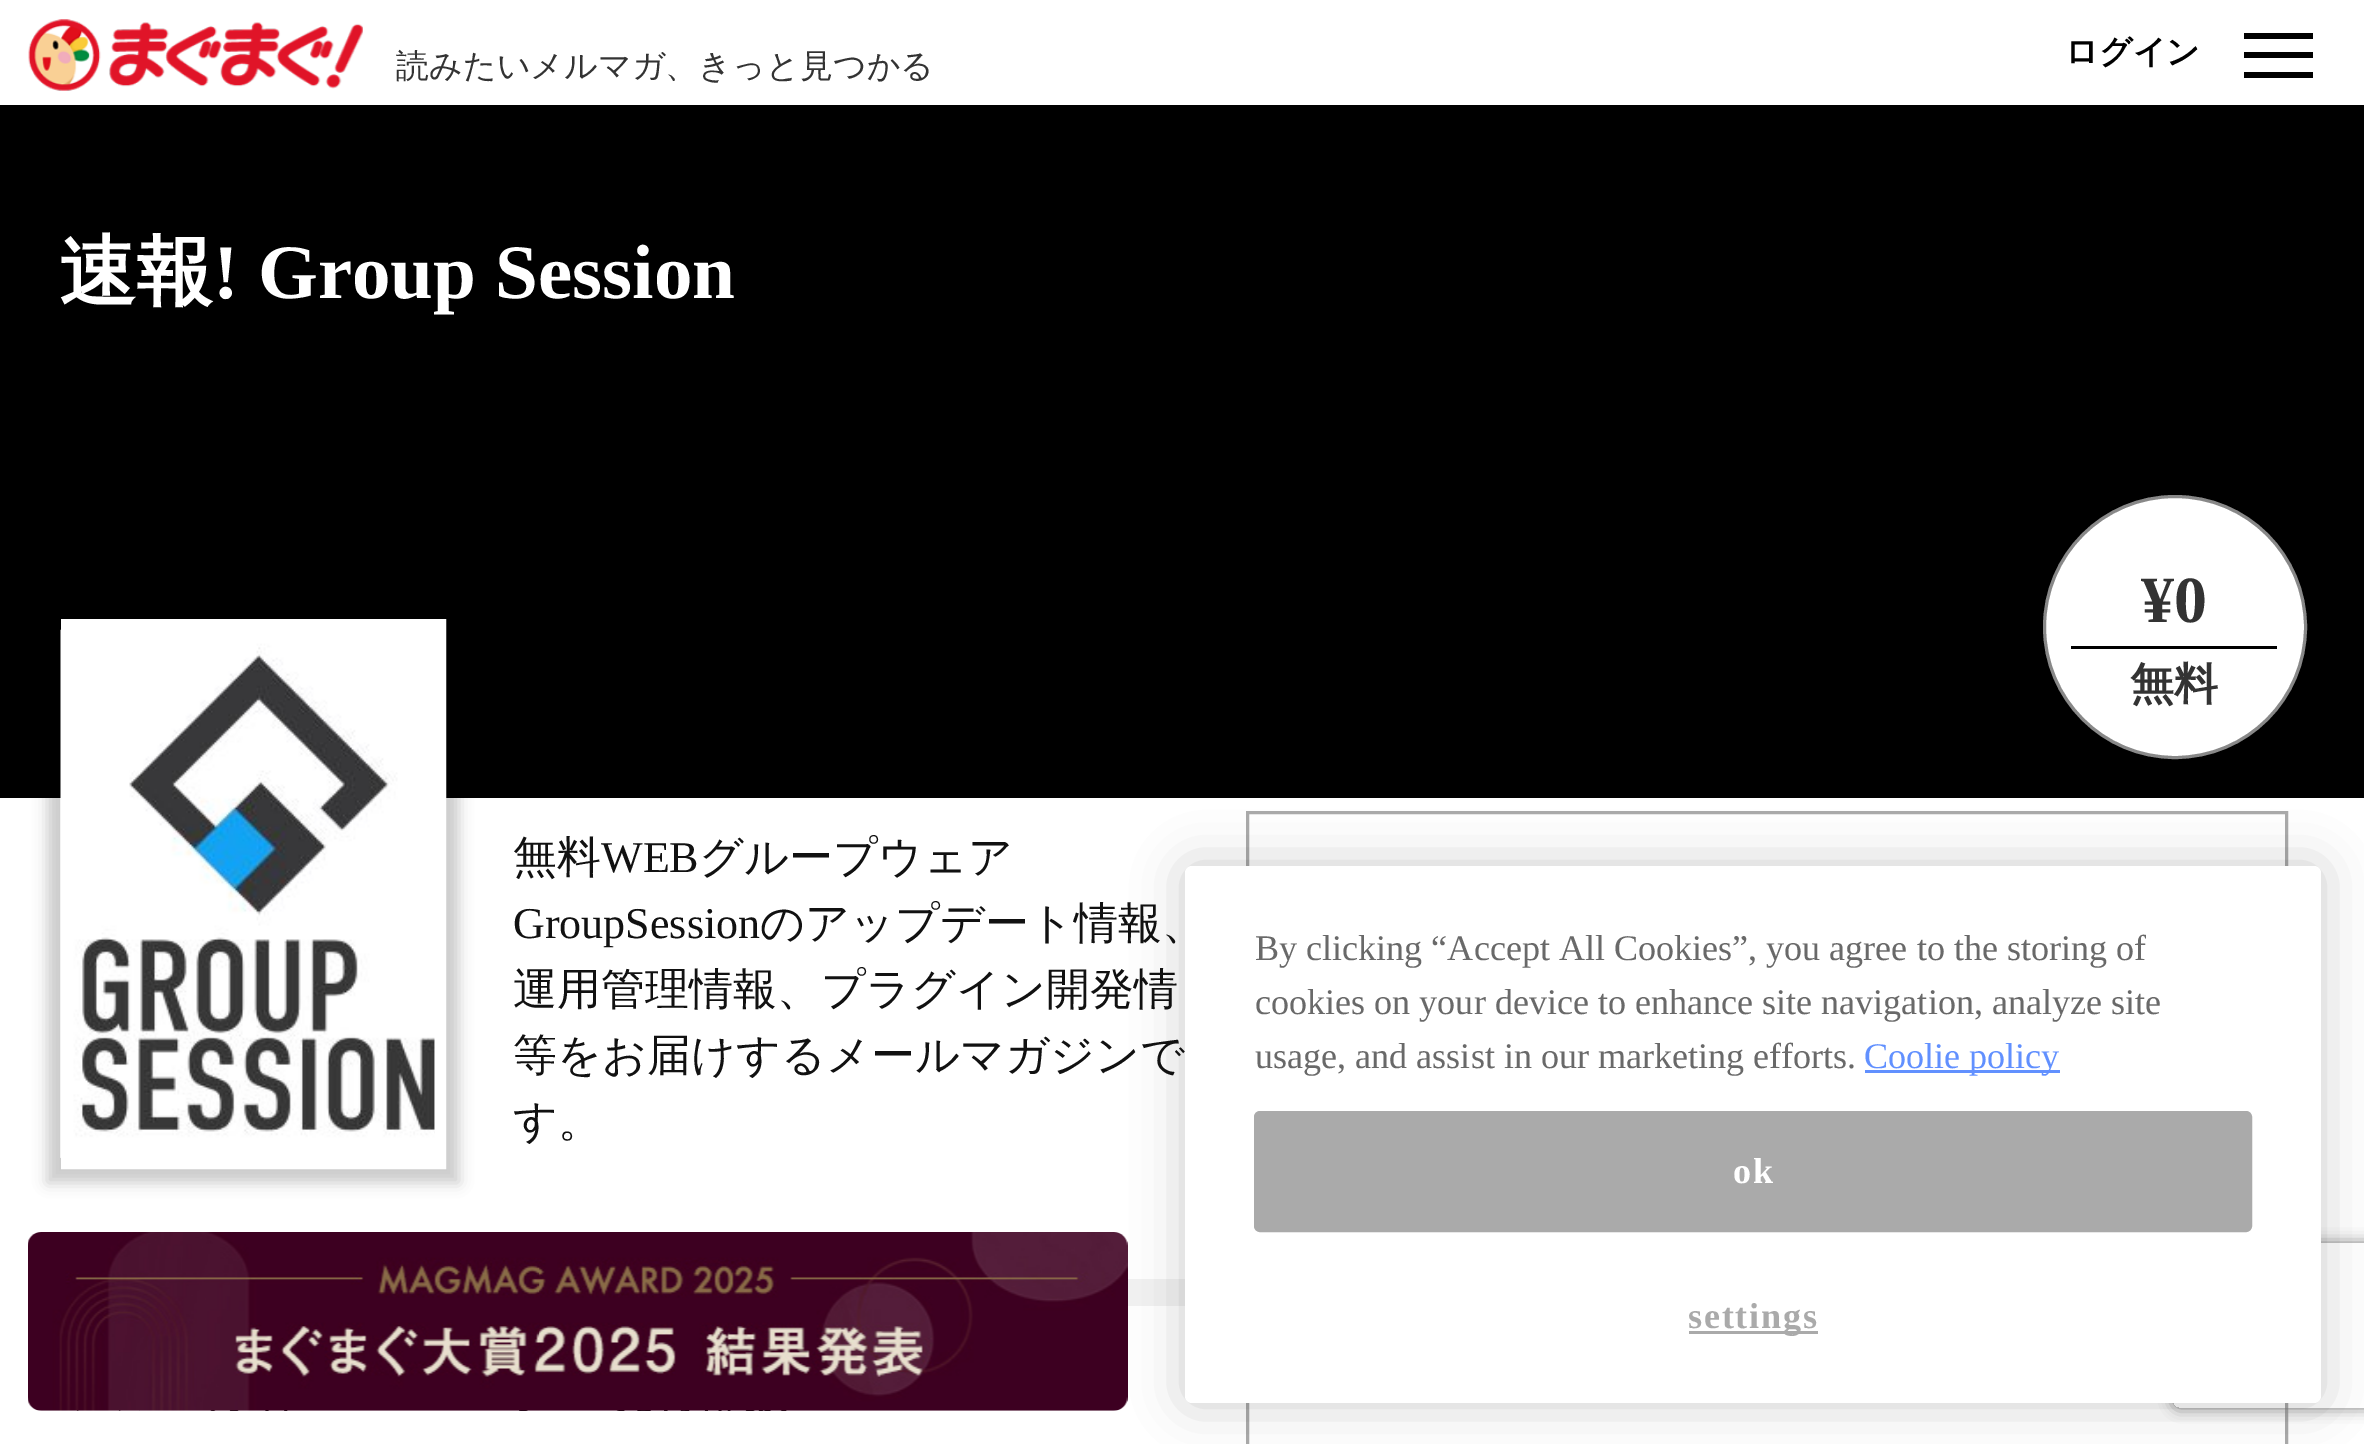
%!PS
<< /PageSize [2364 1444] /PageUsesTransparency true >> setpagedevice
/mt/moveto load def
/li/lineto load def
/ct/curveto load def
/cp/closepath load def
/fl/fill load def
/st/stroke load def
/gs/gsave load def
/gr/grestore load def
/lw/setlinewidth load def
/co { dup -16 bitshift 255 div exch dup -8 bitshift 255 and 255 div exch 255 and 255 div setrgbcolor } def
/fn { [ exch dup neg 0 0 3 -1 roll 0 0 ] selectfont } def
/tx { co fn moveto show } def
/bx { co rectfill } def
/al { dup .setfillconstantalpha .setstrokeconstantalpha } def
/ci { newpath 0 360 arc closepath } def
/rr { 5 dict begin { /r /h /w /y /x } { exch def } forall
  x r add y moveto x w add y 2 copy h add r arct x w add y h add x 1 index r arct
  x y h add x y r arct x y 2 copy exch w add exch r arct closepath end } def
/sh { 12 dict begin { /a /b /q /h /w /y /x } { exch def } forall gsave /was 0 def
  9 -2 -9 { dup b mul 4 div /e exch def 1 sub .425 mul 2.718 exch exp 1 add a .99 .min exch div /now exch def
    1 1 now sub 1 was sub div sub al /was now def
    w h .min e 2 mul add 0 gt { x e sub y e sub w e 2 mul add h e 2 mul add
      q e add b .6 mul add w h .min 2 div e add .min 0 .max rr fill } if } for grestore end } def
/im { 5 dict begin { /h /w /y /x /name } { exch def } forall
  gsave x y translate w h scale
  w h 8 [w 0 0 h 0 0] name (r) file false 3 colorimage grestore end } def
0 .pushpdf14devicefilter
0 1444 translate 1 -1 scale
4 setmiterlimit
0 0 2364 1444 16#FFFFFF bx
(media/1.raw) 28 19 335 72 im
2244 33 69 6 16#000000 bx
2244 52 69 6 16#000000 bx
2244 72 69 6 16#000000 bx
0 105 2364 693 16#000000 bx
(media/2.raw) 28 1232 1100 179 im
47 605 412 578 0 7 .2 sh
(media/3.raw) 60 629 375 529 im
16#FFFFFF co
11 lw
66.5 624.5 374 539 rectstroke
2175 627 130.5 ci gs fl gr
16#888888 co
3 lw
st
2071 646 206 3 16#000000 bx
1128 1279 57 27 16#F2F2F2 bx
16#AAAAAA co
1247.5 812.5 1039 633 rectstroke
gs
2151 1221 mt 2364 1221 li 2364 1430 li 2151 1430 li cp 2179 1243 mt 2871 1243 li 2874.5 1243 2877 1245.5 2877 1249 ct 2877 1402 li 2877 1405.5 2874.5 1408 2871 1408 ct 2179 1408 li 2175.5 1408 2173 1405.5 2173 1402 ct 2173 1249 li 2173 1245.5 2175.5 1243 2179 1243 ct cp eoclip newpath
16#808080 co
2173 1243 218 165 6 7 1 sh
gr
16#000000 co
1185 866 1136 537 7 25 .2 sh
(読みたいメルマガ、きっと見つかる) 396 77 /WenQuanYiZenHei-Medium 33 16#333333 tx
(ログイン) 2065 63 /WenQuanYiZenHei-Bold 33 16#000000 tx
(速報) 59 298 /WenQuanYiZenHei-Bold 77 16#FFFFFF tx
(! Group Session) 213 298 /LiberationSerif-Bold 77 16#FFFFFF tx
(無料) 513 872 /WenQuanYiZenHei-Medium 44 16#111111 tx
(WEB) 601 872 /LiberationSerif-Regular 44 16#111111 tx
(グループウェア) 699 872 /WenQuanYiZenHei-Medium 44 16#111111 tx
(GroupSession) 513 938 /LiberationSerif-Regular 44 16#111111 tx
(のアップデート情報、) 760 938 /WenQuanYiZenHei-Medium 44 16#111111 tx
(運用管理情報、プラグイン開発情) 513 1004 /WenQuanYiZenHei-Medium 44 16#111111 tx
(等をお届けするメールマガジンで) 513 1070 /WenQuanYiZenHei-Medium 44 16#111111 tx
(す。) 513 1136 /WenQuanYiZenHei-Medium 44 16#111111 tx
(¥0) 2141 622 /LiberationSerif-Bold 66 16#333333 tx
(無料) 2130 699 /WenQuanYiZenHei-Bold 44 16#333333 tx
16#FFFFFF co
1185 866 1136 537 7 rr fl
(By clicking “Accept All Cookies”, you agree to the storing of) 1255 960 /LiberationSerif-Regular 36.1 16#696969 tx
(cookies on your device to enhance site navigation, analyze site) 1255 1014 /LiberationSerif-Regular 36.1 16#696969 tx
(usage, and assist in our marketing efforts.) 1255 1068 /LiberationSerif-Regular 36.1 16#696969 tx
1865 1070 195 3 16#6190FF bx
(Coolie policy) 1864 1068 /LiberationSerif-Regular 36.1 16#6190FF tx
16#AAAAAA co
1255.5 1112.5 995 118 4.5 rr gs fl gr
st
/LiberationSerif-Bold 36.1 fn
16#FFFFFF co
1733 1183 mt 1.75 0 (ok) ashow
1689 1331 129 3 16#AAAAAA bx
1688 1328 mt 1.75 0 (settings) ashow
.poppdf14devicefilter showpage
